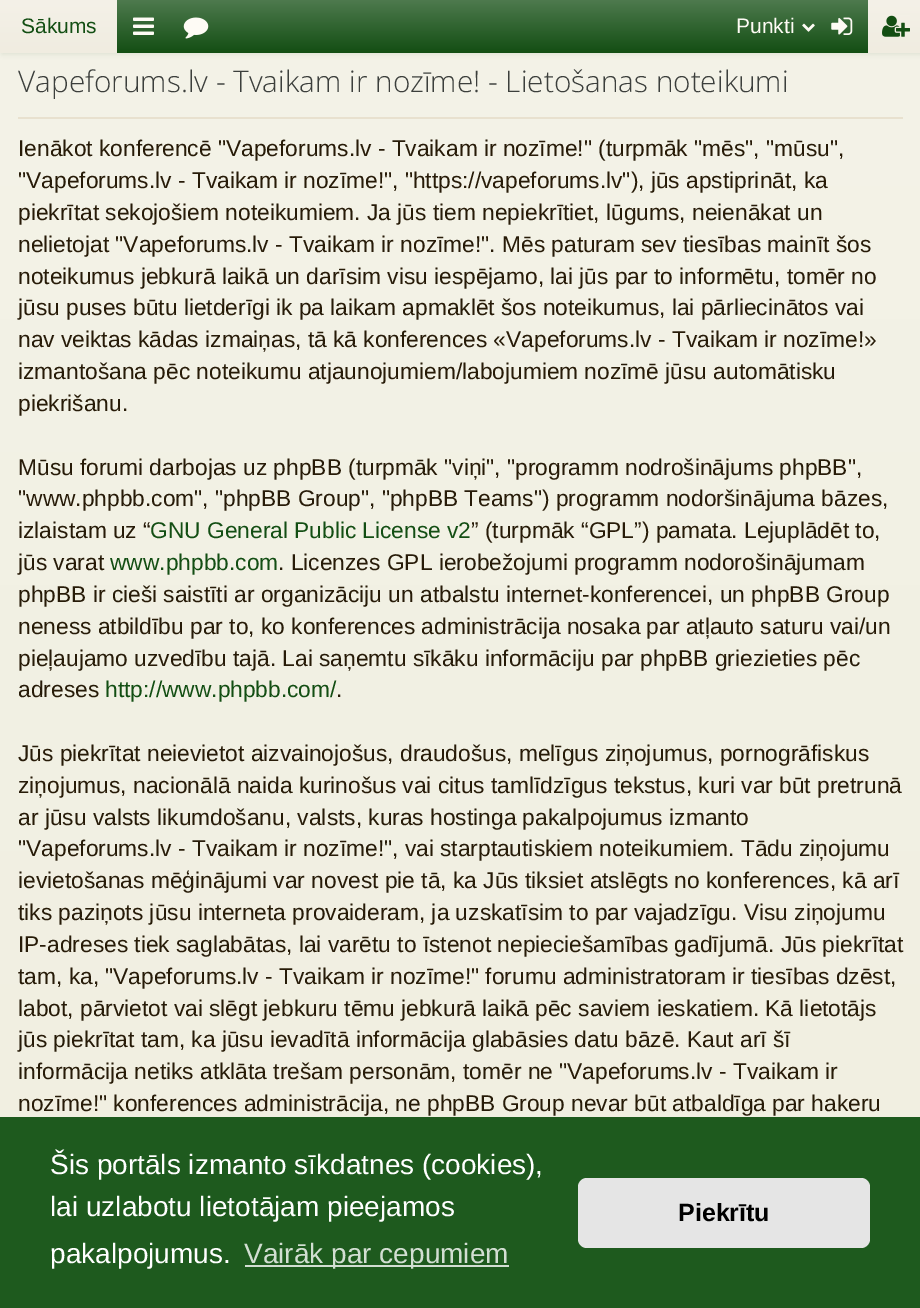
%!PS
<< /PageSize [920 1308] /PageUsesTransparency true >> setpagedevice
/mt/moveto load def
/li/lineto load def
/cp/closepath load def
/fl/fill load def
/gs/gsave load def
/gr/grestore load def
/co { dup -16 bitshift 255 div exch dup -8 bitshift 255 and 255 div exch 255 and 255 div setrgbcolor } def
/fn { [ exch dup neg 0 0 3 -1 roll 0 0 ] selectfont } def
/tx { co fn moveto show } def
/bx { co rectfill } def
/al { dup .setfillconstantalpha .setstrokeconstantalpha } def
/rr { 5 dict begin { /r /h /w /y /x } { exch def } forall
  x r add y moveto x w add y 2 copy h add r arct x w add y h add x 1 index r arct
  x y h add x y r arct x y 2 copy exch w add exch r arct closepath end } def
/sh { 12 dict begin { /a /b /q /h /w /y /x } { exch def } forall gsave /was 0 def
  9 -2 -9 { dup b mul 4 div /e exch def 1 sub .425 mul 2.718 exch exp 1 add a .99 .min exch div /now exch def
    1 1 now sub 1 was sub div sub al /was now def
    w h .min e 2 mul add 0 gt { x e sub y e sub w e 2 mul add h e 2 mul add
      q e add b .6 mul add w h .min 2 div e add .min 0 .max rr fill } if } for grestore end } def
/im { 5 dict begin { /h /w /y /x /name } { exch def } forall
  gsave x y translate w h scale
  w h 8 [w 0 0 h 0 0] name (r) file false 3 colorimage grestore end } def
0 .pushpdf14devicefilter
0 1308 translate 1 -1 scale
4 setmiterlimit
0 0 920 1308 16#FFFFFF bx
gs 0 53 mt 920 53 li 920 1117 li 0 1117 li cp clip newpath
<< /ShadingType 2 /ColorSpace /DeviceRGB /Coords [460 37 460 1290] /Extend [true true] /Function << /FunctionType 2 /Domain [0 1] /C0 [.957 .953 .91] /C1 [.941 .937 .878] /N 1 >> >> shfill gr
16#134E13 co
2 2 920 52 0 2.5 .1 sh
gs 117 0 mt 868 0 li 868 53 li 117 53 li cp clip newpath
<< /ShadingType 2 /ColorSpace /DeviceRGB /Coords [460 0 460 53] /Extend [true true] /Function << /FunctionType 2 /Domain [0 1] /C0 [.306 .478 .306] /C1 [.075 .306 .075] /N 1 >> >> shfill gr
gs 0 0 mt 117 0 li 117 53 li 0 53 li cp clip newpath
<< /ShadingType 2 /ColorSpace /DeviceRGB /Coords [59 0 59 53] /Extend [true true] /Function << /FunctionType 2 /Domain [0 1] /C0 [.957 .945 .91] /C1 [.941 .925 .878] /N 1 >> >> shfill gr
(media/1.raw) 133 17 21 18 im
(media/2.raw) 183 17 26 22 im
(media/3.raw) 802 23 13 9 im
(media/4.raw) 831 17 22 18 im
gs 868 0 mt 920 0 li 920 53 li 868 53 li cp clip newpath
<< /ShadingType 2 /ColorSpace /DeviceRGB /Coords [894 0 894 53] /Extend [true true] /Function << /FunctionType 2 /Domain [0 1] /C0 [.957 .945 .91] /C1 [.941 .925 .878] /N 1 >> >> shfill gr
(media/5.raw) 882 15 28 22 im
18 117 885 2 16#E8E1CF bx
0 1117 920 191 16#1E5A1E bx
245 1265 264 2 16#D2DED2 bx
16#E5E5E5 co
578 1178 292 70 9 rr fl
(Sākums) 21 33 /LiberationSans-Regular 21 16#134E13 tx
(Punkti) 736 33 /LiberationSans-Regular 21 16#FEFBF5 tx
(Vapeforums.lv - Tvaikam ir nozīme! - Lietošanas noteikumi) 18 92 /OpenSans-Light 29.75 16#3C3F3C tx
(Ienākot konferencē "Vapeforums.lv - Tvaikam ir nozīme!" \(turpmāk "mēs", "mūsu",) 18 156 /LiberationSans-Regular 22.75 16#271B08 tx
("Vapeforums.lv - Tvaikam ir nozīme!", "https://vapeforums.lv"\), jūs apstiprināt, ka) 18 188 /LiberationSans-Regular 22.75 16#271B08 tx
(piekrītat sekojošiem noteikumiem. Ja jūs tiem nepiekrītiet, lūgums, neienākat un) 18 220 /LiberationSans-Regular 22.75 16#271B08 tx
(nelietojat "Vapeforums.lv - Tvaikam ir nozīme!". Mēs paturam sev tiesības mainīt šos) 18 252 /LiberationSans-Regular 22.75 16#271B08 tx
(noteikumus jebkurā laikā un darīsim visu iespējamo, lai jūs par to informētu, tomēr no) 18 284 /LiberationSans-Regular 22.75 16#271B08 tx
(jūsu puses būtu lietderīgi ik pa laikam apmaklēt šos noteikumus, lai pārliecinātos vai) 18 315 /LiberationSans-Regular 22.75 16#271B08 tx
(nav veiktas kādas izmaiņas, tā kā konferences «Vapeforums.lv - Tvaikam ir nozīme!») 18 347 /LiberationSans-Regular 22.75 16#271B08 tx
(izmantošana pēc noteikumu atjaunojumiem/labojumiem nozīmē jūsu automātisku) 18 379 /LiberationSans-Regular 22.75 16#271B08 tx
(piekrišanu.) 18 411 /LiberationSans-Regular 22.75 16#271B08 tx
(Mūsu forumi darbojas uz phpBB \(turpmāk "viņi", "programm nodrošinājums phpBB",) 18 475 /LiberationSans-Regular 22.75 16#271B08 tx
("www.phpbb.com", "phpBB Group", "phpBB Teams"\) programm nodoršinājuma bāzes,) 18 506 /LiberationSans-Regular 22.75 16#271B08 tx
(izlaistam uz “) 18 538 /LiberationSans-Regular 22.75 16#271B08 tx
(GNU General Public License v2) 150 538 /LiberationSans-Regular 22.75 16#134E13 tx
(” \(turpmāk “GPL”\) pamata. Lejuplādēt to,) 471 538 /LiberationSans-Regular 22.75 16#271B08 tx
(jūs varat) 18 570 /LiberationSans-Regular 22.75 16#271B08 tx
(www.phpbb.com) 110 570 /LiberationSans-Regular 22.75 16#134E13 tx
(. Licenzes GPL ierobežojumi programm nodorošinājumam) 278 570 /LiberationSans-Regular 22.75 16#271B08 tx
(phpBB ir cieši saistīti ar organizāciju un atbalstu internet-konferencei, un phpBB Group) 18 602 /LiberationSans-Regular 22.75 16#271B08 tx
(neness atbildību par to, ko konferences administrācija nosaka par atļauto saturu vai/un) 18 634 /LiberationSans-Regular 22.75 16#271B08 tx
(pieļaujamo uzvedību tajā. Lai saņemtu sīkāku informāciju par phpBB griezieties pēc) 18 666 /LiberationSans-Regular 22.75 16#271B08 tx
(adreses) 18 697 /LiberationSans-Regular 22.75 16#271B08 tx
(http://www.phpbb.com/) 105 697 /LiberationSans-Regular 22.75 16#134E13 tx
(.) 336 697 /LiberationSans-Regular 22.75 16#271B08 tx
(Jūs piekrītat neievietot aizvainojošus, draudošus, melīgus ziņojumus, pornogrāfiskus) 18 761 /LiberationSans-Regular 22.75 16#271B08 tx
(ziņojumus, nacionālā naida kurinošus vai citus tamlīdzīgus tekstus, kuri var būt pretrunā) 18 793 /LiberationSans-Regular 22.75 16#271B08 tx
(ar jūsu valsts likumdošanu, valsts, kuras hostinga pakalpojumus izmanto) 18 825 /LiberationSans-Regular 22.75 16#271B08 tx
("Vapeforums.lv - Tvaikam ir nozīme!", vai starptautiskiem noteikumiem. Tādu ziņojumu) 18 856 /LiberationSans-Regular 22.75 16#271B08 tx
(ievietošanas mēģinājumi var novest pie tā, ka Jūs tiksiet atslēgts no konferences, kā arī) 18 888 /LiberationSans-Regular 22.75 16#271B08 tx
(tiks paziņots jūsu interneta provaideram, ja uzskatīsim to par vajadzīgu. Visu ziņojumu) 18 920 /LiberationSans-Regular 22.75 16#271B08 tx
(IP-adreses tiek saglabātas, lai varētu to īstenot nepieciešamības gadījumā. Jūs piekrītat) 18 952 /LiberationSans-Regular 22.75 16#271B08 tx
(tam, ka, "Vapeforums.lv - Tvaikam ir nozīme!" forumu administratoram ir tiesības dzēst,) 18 984 /LiberationSans-Regular 22.75 16#271B08 tx
(labot, pārvietot vai slēgt jebkuru tēmu jebkurā laikā pēc saviem ieskatiem. Kā lietotājs) 18 1016 /LiberationSans-Regular 22.75 16#271B08 tx
(jūs piekrītat tam, ka jūsu ievadītā informācija glabāsies datu bāzē. Kaut arī šī) 18 1047 /LiberationSans-Regular 22.75 16#271B08 tx
(informācija netiks atklāta trešam personām, tomēr ne "Vapeforums.lv - Tvaikam ir) 18 1079 /LiberationSans-Regular 22.75 16#271B08 tx
(nozīme!" konferences administrācija, ne phpBB Group nevar būt atbaldīga par hakeru) 18 1111 /LiberationSans-Regular 22.75 16#271B08 tx
(Šis portāls izmanto sīkdatnes \(cookies\),) 50 1174 /LiberationSans-Regular 28 16#FFFFFF tx
(lai uzlabotu lietotājam pieejamos) 50 1216 /LiberationSans-Regular 28 16#FFFFFF tx
(pakalpojumus.) 50 1263 /LiberationSans-Regular 28 16#FFFFFF tx
(Vairāk par cepumiem) 244 1263 /LiberationSans-Regular 28 16#D2DED2 tx
(Piekrītu) 678 1221 /LiberationSans-Bold 25 16#000000 tx
.poppdf14devicefilter showpage
